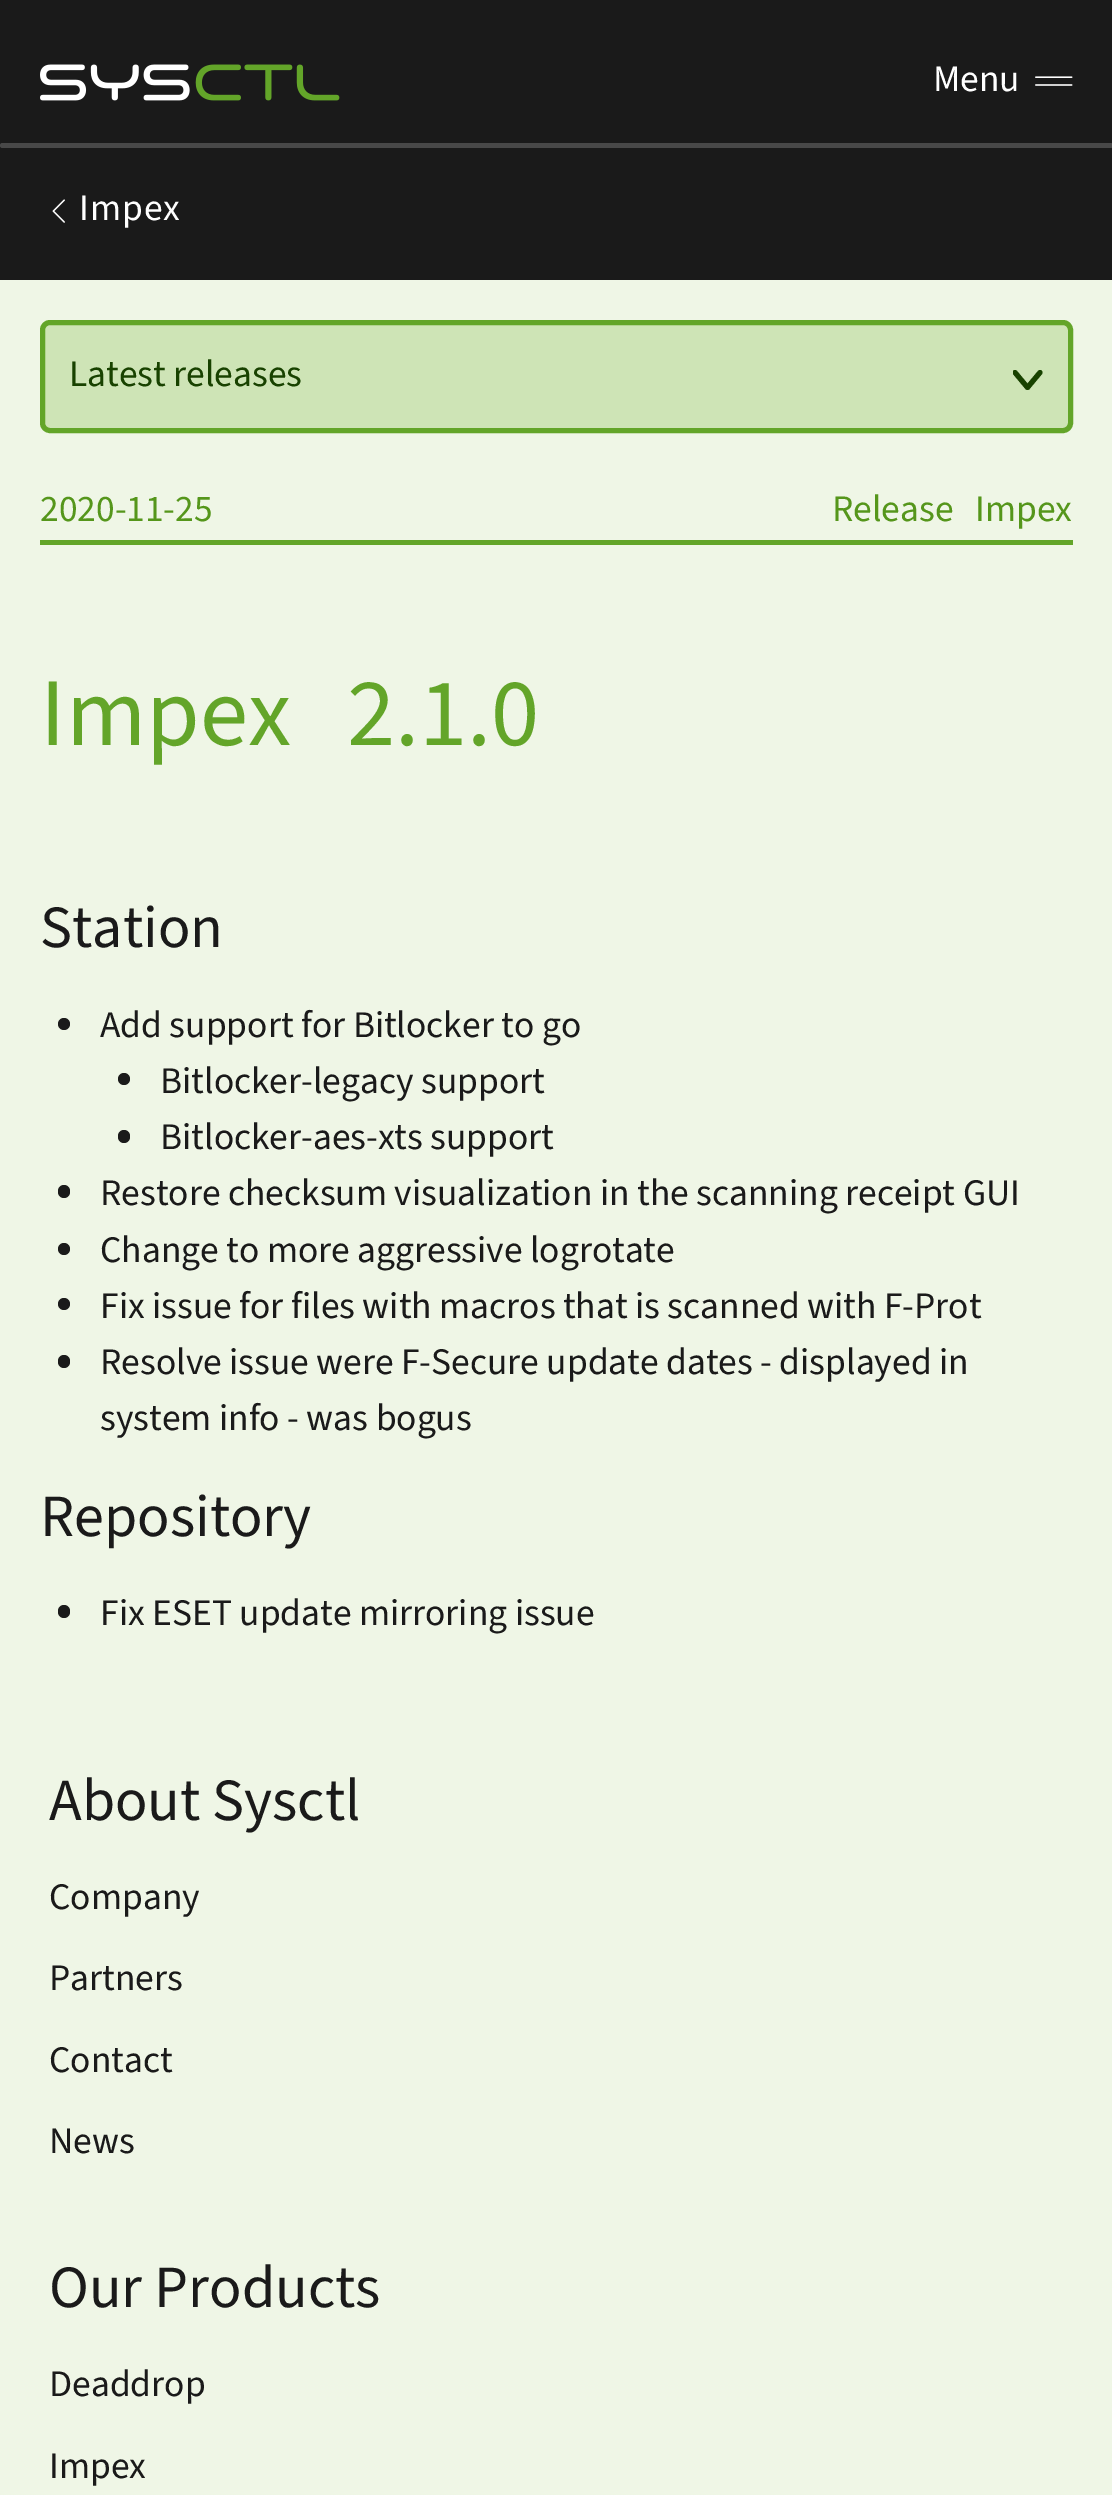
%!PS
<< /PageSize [1112 2495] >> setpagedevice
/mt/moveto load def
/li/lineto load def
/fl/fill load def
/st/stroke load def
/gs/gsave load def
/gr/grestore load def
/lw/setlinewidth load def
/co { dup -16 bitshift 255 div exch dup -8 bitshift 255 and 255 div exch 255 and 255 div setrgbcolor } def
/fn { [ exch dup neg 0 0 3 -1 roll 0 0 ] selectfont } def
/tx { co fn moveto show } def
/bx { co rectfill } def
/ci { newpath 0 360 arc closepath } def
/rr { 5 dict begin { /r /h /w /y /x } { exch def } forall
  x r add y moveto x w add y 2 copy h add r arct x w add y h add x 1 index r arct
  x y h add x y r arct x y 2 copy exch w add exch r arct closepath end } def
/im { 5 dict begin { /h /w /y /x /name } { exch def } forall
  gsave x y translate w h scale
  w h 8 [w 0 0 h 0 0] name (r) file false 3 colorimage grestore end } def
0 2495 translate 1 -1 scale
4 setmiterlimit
0 0 1112 2495 16#EFF6E6 bx
0 0 1112 280 16#1A1A1A bx
(media/1.raw) 40 64 300 37 im
(media/2.raw) 1035 76 38 10 im
16#484848 co
0 143 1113 5 2.5 rr fl
(media/3.raw) 52 199 13 24 im
16#CEE4B6 co
42.5 322.5 1028 108 7.5 rr gs fl gr
16#63A529 co
5 lw
st
gs
1013 368 30 25 rectclip
16#184200 co
1 setlinecap
1 setlinejoin
1015 372.5 mt 1027.5 387.5 li 1040 372.5 li st
gr
40 540 1033 5 16#63A529 bx
16#1A1A1A co
64 1024 6 ci fl
124 1079 6 ci fl
118 1130 12 13 6 rr fl
58 1185 12 13 6 rr fl
64 1249 6 ci fl
64 1304 6 ci fl
58 1355 12 13 6 rr fl
58 1605 12 13 6 rr fl
(Menu) 933 91 /SourceSans3-Regular 37.5 16#FFFFFF tx
79 220 mt 1 0 (Impex) ashow
(Latest releases) 69 386 /SourceSans3-Regular 37.5 16#184200 tx
(2020-11-25) 40 521 /SourceSans3-Regular 37.5 16#55961B tx
(Release) 832 521 /SourceSans3-Regular 37.5 16#55961B tx
(Impex) 975 521 /SourceSans3-Regular 37.5 16#55961B tx
/SourceSans3-Regular 97 fn
16#63A529 co
40 745 mt 36 0 32 (Impex 2.1.0) widthshow
(Station) 40 947 /SourceSans3-Regular 60 16#1A1A1A tx
(Add support for Bitlocker to go) 100 1037 /SourceSans3-Regular 37.5 16#1A1A1A tx
(Bitlocker-legacy support) 160 1093 /SourceSans3-Regular 37.5 16#1A1A1A tx
(Bitlocker-aes-xts support) 160 1149 /SourceSans3-Regular 37.5 16#1A1A1A tx
(Restore checksum visualization in the scanning receipt GUI) 100 1205 /SourceSans3-Regular 37.5 16#1A1A1A tx
(Change to more aggressive logrotate) 100 1262 /SourceSans3-Regular 37.5 16#1A1A1A tx
(Fix issue for files with macros that is scanned with F-Prot) 100 1318 /SourceSans3-Regular 37.5 16#1A1A1A tx
(Resolve issue were F-Secure update dates - displayed in) 100 1374 /SourceSans3-Regular 37.5 16#1A1A1A tx
(system info - was bogus) 100 1430 /SourceSans3-Regular 37.5 16#1A1A1A tx
(Repository) 40 1536 /SourceSans3-Regular 60 16#1A1A1A tx
(Fix ESET update mirroring issue) 100 1625 /SourceSans3-Regular 37.5 16#1A1A1A tx
(About Sysctl) 49 1820 /SourceSans3-Regular 60 16#1A1A1A tx
(Company) 49 1909 /SourceSans3-Regular 37.5 16#1A1A1A tx
(Partners) 49 1990 /SourceSans3-Regular 37.5 16#1A1A1A tx
(Contact) 49 2072 /SourceSans3-Regular 37.5 16#1A1A1A tx
(News) 49 2153 /SourceSans3-Regular 37.5 16#1A1A1A tx
(Our Products) 49 2307 /SourceSans3-Regular 60 16#1A1A1A tx
(Deaddrop) 49 2396 /SourceSans3-Regular 37.5 16#1A1A1A tx
(Impex) 49 2478 /SourceSans3-Regular 37.5 16#1A1A1A tx
showpage
